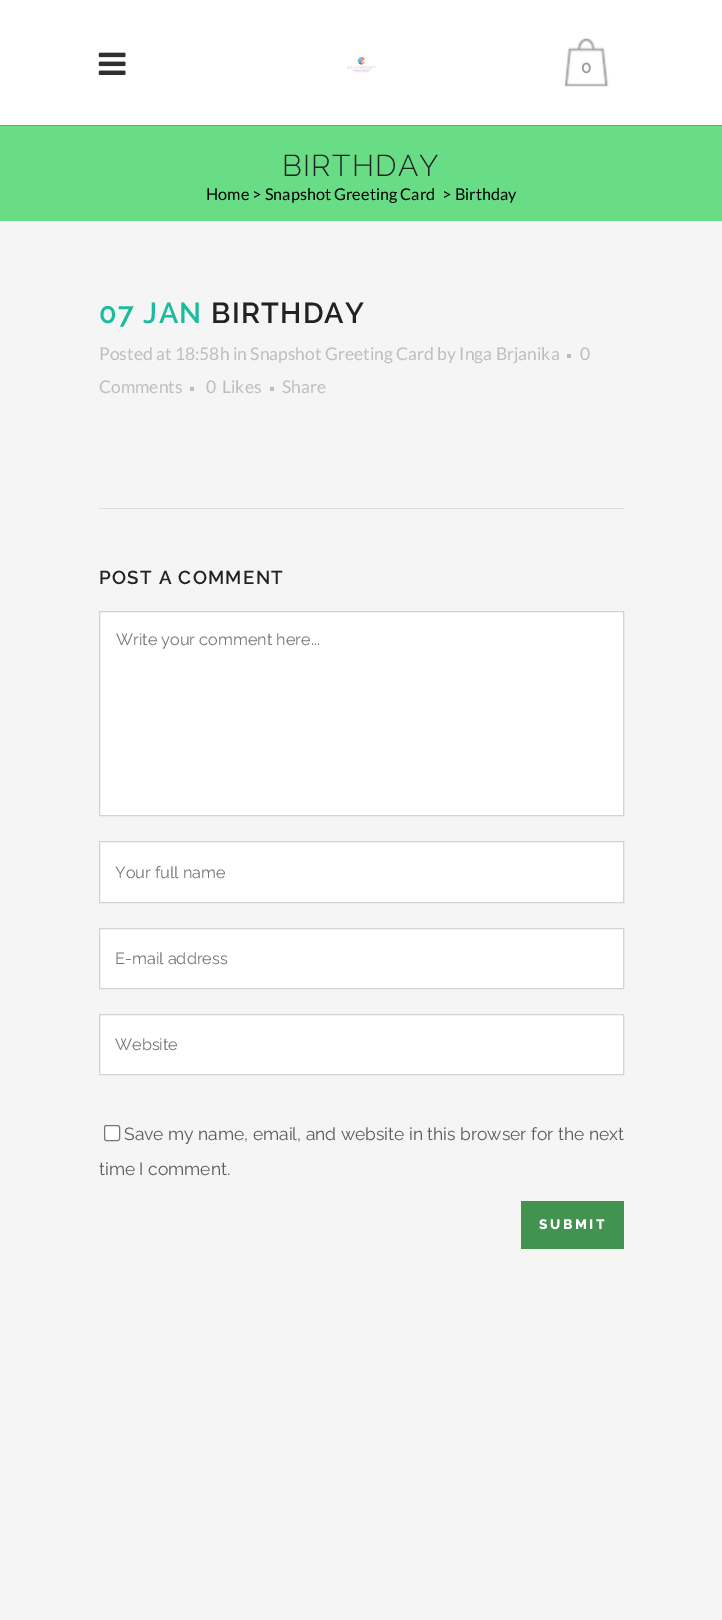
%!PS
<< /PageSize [722 1620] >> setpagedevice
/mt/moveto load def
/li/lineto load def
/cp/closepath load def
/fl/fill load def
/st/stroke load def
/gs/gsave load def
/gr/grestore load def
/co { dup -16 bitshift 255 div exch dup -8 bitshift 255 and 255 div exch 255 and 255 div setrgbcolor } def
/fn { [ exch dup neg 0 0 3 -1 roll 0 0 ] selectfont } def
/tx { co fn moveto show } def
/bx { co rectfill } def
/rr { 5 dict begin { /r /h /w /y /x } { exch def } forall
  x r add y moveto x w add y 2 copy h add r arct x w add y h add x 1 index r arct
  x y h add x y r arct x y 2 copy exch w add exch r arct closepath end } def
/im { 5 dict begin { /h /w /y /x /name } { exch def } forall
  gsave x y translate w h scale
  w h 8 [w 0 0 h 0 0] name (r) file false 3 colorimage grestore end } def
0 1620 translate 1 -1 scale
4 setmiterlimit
0 0 722 1620 16#F5F5F5 bx
0 0 722 125 16#FFFFFF bx
0 125 722 1 16#8E8E8E bx
(media/1.raw) 98 52 28 23 im
(media/2.raw) 347 56 29 17 im
(media/3.raw) 564 38 45 49 im
0 126 722 95 16#68DD85 bx
567 354 4 4 16#BEBEBE bx
190 387 4 4 16#BEBEBE bx
270 387 4 4 16#BEBEBE bx
99 508 525 1 16#DDDDDD bx
16#FFFFFF co
99.5 611.5 mt 623.5 611.5 li 623.5 815.5 li 99.5 815.5 li cp gs fl gr
16#D3D3D3 co
st
16#FFFFFF co
99.5 841.5 mt 623.5 841.5 li 623.5 902.5 li 99.5 902.5 li cp gs fl gr
16#D3D3D3 co
st
16#FFFFFF co
99.5 928.5 mt 623.5 928.5 li 623.5 988.5 li 99.5 988.5 li cp gs fl gr
16#D3D3D3 co
st
16#FFFFFF co
99.5 1014.5 mt 623.5 1014.5 li 623.5 1074.5 li 99.5 1074.5 li cp gs fl gr
16#D3D3D3 co
st
16#FFFFFF co
104.5 1125.5 15 15 2 rr gs fl gr
16#767676 co
st
521 1201 103 48 16#429350 bx
(0) 581 73 /Raleway-SemiBold 17.5 16#9D9D9D tx
/Raleway-Light 30 fn
16#222222 co
282 176 mt 1.25 0 (BIRTHDAY) ashow
(Home > Snapshot Greeting Card) 206 200 /Lato-Regular 16.25 16#000000 tx
(> Birthday) 442 200 /Lato-Regular 16.25 16#000000 tx
/Raleway-SemiBold 28.75 fn
16#1ABC9C co
99 323 mt 1.25 0 (07 JAN) ashow
16#222222 co
211 323 mt 1.25 0 (BIRTHDAY) ashow
(Posted at 18:58h in Snapshot Greeting Card by Inga Brjanika) 99 360 /Lato-Regular 17.5 16#BEBEBE tx
(0) 580 360 /Lato-Regular 17.5 16#BEBEBE tx
(Comments) 99 393 /Lato-Regular 17.5 16#BEBEBE tx
(0) 206 393 /Lato-Regular 17.5 16#BEBEBE tx
(Likes) 222 393 /Lato-Regular 17.5 16#BEBEBE tx
(Share) 282 393 /Lato-Regular 17.5 16#BEBEBE tx
/Raleway-SemiBold 18.75 fn
16#222222 co
99 584 mt 1.25 0 (POST A COMMENT) ashow
(Write your comment here...) 116 645 /Raleway-Regular 16.25 16#757575 tx
(Your full name) 115 878 /Raleway-Regular 16.25 16#757575 tx
(E-mail address) 115 964 /Raleway-Regular 16.25 16#757575 tx
(Website) 115 1050 /Raleway-Regular 16.25 16#757575 tx
(Save my name, email, and website in this browser for the next) 124 1140 /Raleway-Regular 17.5 16#5B5B5B tx
(time I comment.) 99 1175 /Raleway-Regular 17.5 16#5B5B5B tx
/Raleway-ExtraBold 13.75 fn
16#FFFFFF co
539 1229 mt 2.5 0 (SUBMIT) ashow
showpage
